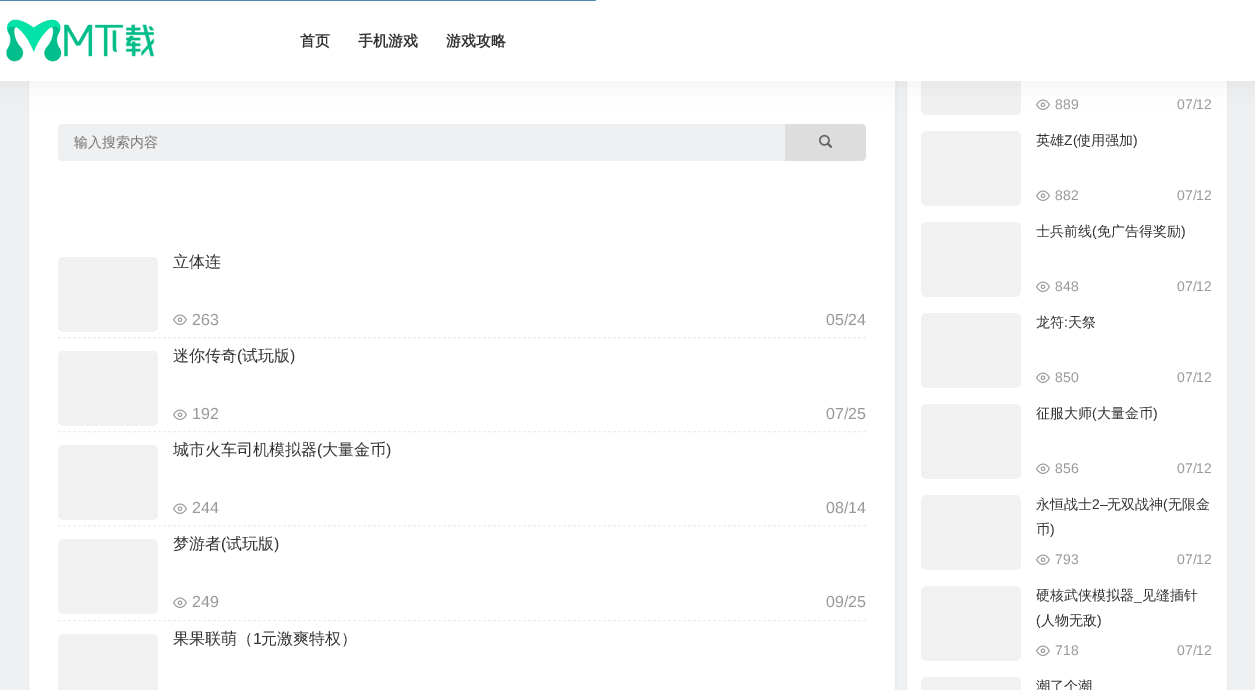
%!PS
<< /PageSize [1255 690] /PageUsesTransparency true >> setpagedevice
/mt/moveto load def
/li/lineto load def
/ct/curveto load def
/cp/closepath load def
/fl/fill load def
/st/stroke load def
/gs/gsave load def
/gr/grestore load def
/co { dup -16 bitshift 255 div exch dup -8 bitshift 255 and 255 div exch 255 and 255 div setrgbcolor } def
/fn { [ exch dup neg 0 0 3 -1 roll 0 0 ] selectfont } def
/tx { co fn moveto show } def
/bx { co rectfill } def
/al { dup .setfillconstantalpha .setstrokeconstantalpha } def
/rr { 5 dict begin { /r /h /w /y /x } { exch def } forall
  x r add y moveto x w add y 2 copy h add r arct x w add y h add x 1 index r arct
  x y h add x y r arct x y 2 copy exch w add exch r arct closepath end } def
/sh { 12 dict begin { /a /b /q /h /w /y /x } { exch def } forall gsave /was 0 def
  9 -2 -9 { dup b mul 4 div /e exch def 1 sub .425 mul 2.718 exch exp 1 add a .99 .min exch div /now exch def
    1 1 now sub 1 was sub div sub al /was now def
    w h .min e 2 mul add 0 gt { x e sub y e sub w e 2 mul add h e 2 mul add
      q e add b .6 mul add w h .min 2 div e add .min 0 .max rr fill } if } for grestore end } def
/im { 5 dict begin { /h /w /y /x /name } { exch def } forall
  gsave x y translate w h scale
  w h 8 [w 0 0 h 0 0] name (r) file false 3 colorimage grestore end } def
0 .pushpdf14devicefilter
0 690 translate 1 -1 scale
4 setmiterlimit
0 0 1255 690 16#EFF0F2 bx
16#FFFFFF co
28 -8 868 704 8 rr fl
0.07 al
16#000000 co
28.5 -.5 867 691 rectstroke
1 al
16#EFF0F2 co
63 124 mt 785 124 li 785 161 li 63 161 li 60 161 58 159 58 156 ct 58 129 li 58 126 60 124 63 124 ct cp fl
16#DDDDDD co
785 124 mt 861 124 li 864 124 866 126 866 129 ct 866 156 li 866 159 864 161 861 161 ct 785 161 li cp fl
907 81 320 609 16#FFFFFF bx
16#ECECEC co
906.5 -.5 321 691 rectstroke
(media/7.raw) 921 81 100 34 im
(media/4.raw) 1036 99 14 11 im
16#000000 co
0 3 1255 81 0 15 .06 sh
0 0 1255 81 16#FFFFFF bx
0 0 596 1 16#4D8CB8 bx
(media/1.raw) 6 19 149 43 im
(media/2.raw) 819 134 13 14 im
16#ECECEC co
[3 2] 0 setdash
58 337.5 mt 866 337.5 li st
(media/3.raw) 58 257 100 75 im
(media/4.raw) 173 314 14 11 im
58 431.5 mt 866 431.5 li st
(media/5.raw) 58 351 100 75 im
(media/4.raw) 173 409 14 11 im
58 525.5 mt 866 525.5 li st
(media/5.raw) 58 445 100 75 im
(media/4.raw) 173 503 14 11 im
58 620.5 mt 866 620.5 li st
(media/5.raw) 58 539 100 75 im
(media/4.raw) 173 597 14 11 im
(media/6.raw) 58 634 100 56 im
(media/8.raw) 921 131 100 75 im
(media/4.raw) 1036 190 14 11 im
(media/8.raw) 921 222 100 75 im
(media/4.raw) 1036 281 14 11 im
(media/8.raw) 921 313 100 75 im
(media/4.raw) 1036 372 14 11 im
(media/8.raw) 921 404 100 75 im
(media/4.raw) 1036 463 14 11 im
(media/8.raw) 921 495 100 75 im
(media/4.raw) 1036 554 14 11 im
(media/8.raw) 921 586 100 75 im
(media/4.raw) 1036 645 14 11 im
(media/9.raw) 921 677 100 13 im
(首页) 300 46 /WenQuanYiZenHei-Bold 15 16#333333 tx
(手机游戏) 358 46 /WenQuanYiZenHei-Bold 15 16#333333 tx
(游戏攻略) 446 46 /WenQuanYiZenHei-Bold 15 16#333333 tx
gs
74 134 695 18 rectclip
(输入搜索内容) 74 147 /WenQuanYiZenHei-Medium 14 16#757575 tx
gr
(立体连) 173 267 /WenQuanYiZenHei-Medium 16 16#333333 tx
(263) 192 325 /LiberationSans-Regular 16 16#999999 tx
(05/24) 826 325 /LiberationSans-Regular 16 16#999999 tx
(迷你传奇) 173 361 /WenQuanYiZenHei-Medium 16 16#333333 tx
(\() 237 361 /LiberationSans-Regular 16 16#333333 tx
(试玩版) 242 361 /WenQuanYiZenHei-Medium 16 16#333333 tx
(\)) 290 361 /LiberationSans-Regular 16 16#333333 tx
(192) 192 419 /LiberationSans-Regular 16 16#999999 tx
(07/25) 826 419 /LiberationSans-Regular 16 16#999999 tx
gs
173 437 693 53 rectclip
(城市火车司机模拟器) 173 455 /WenQuanYiZenHei-Medium 16 16#333333 tx
gr
(\() 317 455 /LiberationSans-Regular 16 16#333333 tx
(大量金币) 322 455 /WenQuanYiZenHei-Medium 16 16#333333 tx
(\)) 386 455 /LiberationSans-Regular 16 16#333333 tx
(244) 192 513 /LiberationSans-Regular 16 16#999999 tx
(08/14) 826 513 /LiberationSans-Regular 16 16#999999 tx
(梦游者) 173 549 /WenQuanYiZenHei-Medium 16 16#333333 tx
(\() 221 549 /LiberationSans-Regular 16 16#333333 tx
(试玩版) 226 549 /WenQuanYiZenHei-Medium 16 16#333333 tx
(\)) 274 549 /LiberationSans-Regular 16 16#333333 tx
(249) 192 607 /LiberationSans-Regular 16 16#999999 tx
(09/25) 826 607 /LiberationSans-Regular 16 16#999999 tx
(果果联萌（) 173 644 /WenQuanYiZenHei-Medium 16 16#333333 tx
(1) 253 644 /LiberationSans-Regular 16 16#333333 tx
(元激爽特权）) 261 644 /WenQuanYiZenHei-Medium 16 16#333333 tx
(889) 1055 109 /LiberationSans-Regular 14 16#999999 tx
(07/12) 1177 109 /LiberationSans-Regular 14 16#999999 tx
(英雄) 1036 145 /WenQuanYiZenHei-Medium 14 16#333333 tx
(Z\() 1064 145 /LiberationSans-Regular 14 16#333333 tx
(使用强加) 1077 145 /WenQuanYiZenHei-Medium 14 16#333333 tx
(\)) 1133 145 /LiberationSans-Regular 14 16#333333 tx
(882) 1055 200 /LiberationSans-Regular 14 16#999999 tx
(07/12) 1177 200 /LiberationSans-Regular 14 16#999999 tx
(士兵前线) 1036 236 /WenQuanYiZenHei-Medium 14 16#333333 tx
(\() 1092 236 /LiberationSans-Regular 14 16#333333 tx
(免广告得奖励) 1097 236 /WenQuanYiZenHei-Medium 14 16#333333 tx
(\)) 1181 236 /LiberationSans-Regular 14 16#333333 tx
(848) 1055 291 /LiberationSans-Regular 14 16#999999 tx
(07/12) 1177 291 /LiberationSans-Regular 14 16#999999 tx
(龙符) 1036 327 /WenQuanYiZenHei-Medium 14 16#333333 tx
(:) 1064 327 /LiberationSans-Regular 14 16#333333 tx
(天祭) 1068 327 /WenQuanYiZenHei-Medium 14 16#333333 tx
(850) 1055 382 /LiberationSans-Regular 14 16#999999 tx
(07/12) 1177 382 /LiberationSans-Regular 14 16#999999 tx
(征服大师) 1036 418 /WenQuanYiZenHei-Medium 14 16#333333 tx
(\() 1092 418 /LiberationSans-Regular 14 16#333333 tx
(大量金币) 1097 418 /WenQuanYiZenHei-Medium 14 16#333333 tx
(\)) 1153 418 /LiberationSans-Regular 14 16#333333 tx
(856) 1055 473 /LiberationSans-Regular 14 16#999999 tx
(07/12) 1177 473 /LiberationSans-Regular 14 16#999999 tx
(永恒战士) 1036 509 /WenQuanYiZenHei-Medium 14 16#333333 tx
(2–) 1092 509 /LiberationSans-Regular 14 16#333333 tx
(无双战神) 1107 509 /WenQuanYiZenHei-Medium 14 16#333333 tx
(\() 1163 509 /LiberationSans-Regular 14 16#333333 tx
(无限金) 1168 509 /WenQuanYiZenHei-Medium 14 16#333333 tx
(币) 1036 534 /WenQuanYiZenHei-Medium 14 16#333333 tx
(\)) 1050 534 /LiberationSans-Regular 14 16#333333 tx
(793) 1055 564 /LiberationSans-Regular 14 16#999999 tx
(07/12) 1177 564 /LiberationSans-Regular 14 16#999999 tx
(硬核武侠模拟器) 1036 600 /WenQuanYiZenHei-Medium 14 16#333333 tx
(_) 1134 600 /LiberationSans-Regular 14 16#333333 tx
(见缝插针) 1142 600 /WenQuanYiZenHei-Medium 14 16#333333 tx
(\() 1036 625 /LiberationSans-Regular 14 16#333333 tx
(人物无敌) 1041 625 /WenQuanYiZenHei-Medium 14 16#333333 tx
(\)) 1097 625 /LiberationSans-Regular 14 16#333333 tx
(718) 1055 655 /LiberationSans-Regular 14 16#999999 tx
(07/12) 1177 655 /LiberationSans-Regular 14 16#999999 tx
(潮了个潮) 1036 691 /WenQuanYiZenHei-Medium 14 16#333333 tx
.poppdf14devicefilter showpage
